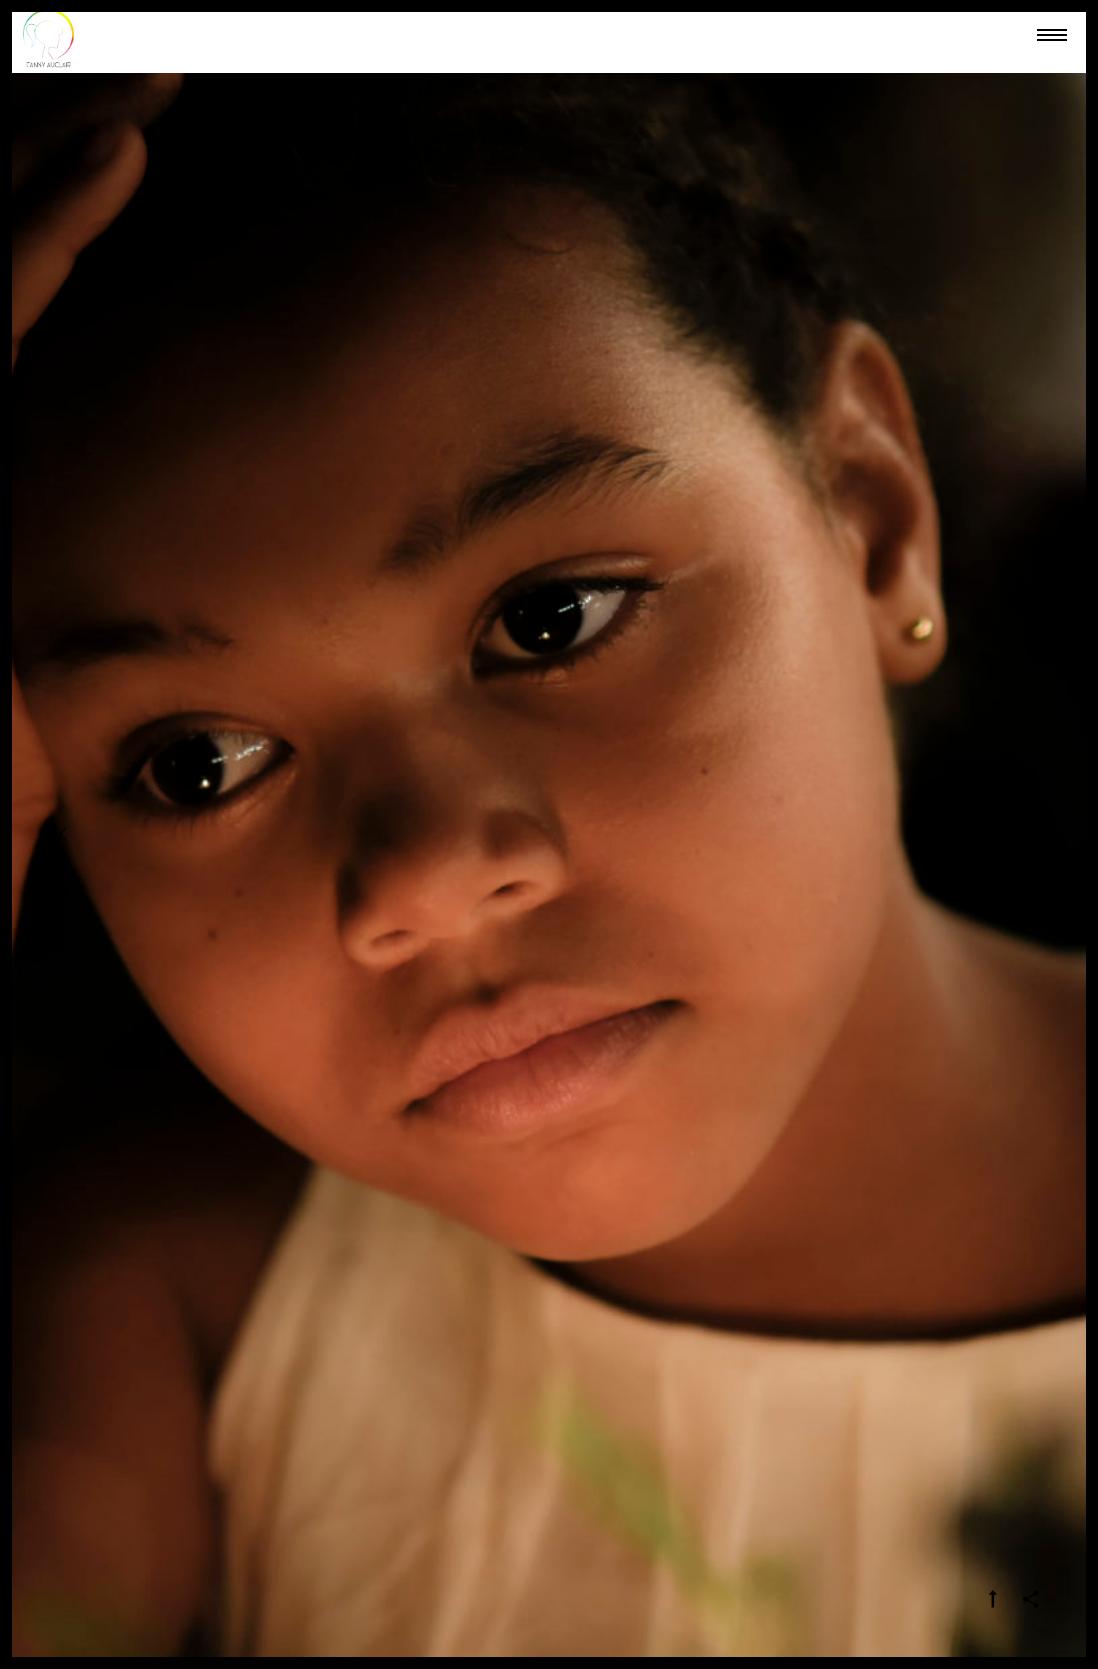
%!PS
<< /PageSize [1098 1669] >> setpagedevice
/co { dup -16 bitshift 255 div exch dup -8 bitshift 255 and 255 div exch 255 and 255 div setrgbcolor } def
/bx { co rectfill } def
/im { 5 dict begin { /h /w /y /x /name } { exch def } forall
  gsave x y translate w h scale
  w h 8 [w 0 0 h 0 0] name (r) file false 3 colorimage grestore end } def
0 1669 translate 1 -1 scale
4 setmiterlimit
0 0 1098 1669 16#FFFFFF bx
0 0 12 1669 16#000000 bx
12 0 1074 12 16#000000 bx
1086 0 12 1657 16#000000 bx
12 1657 1086 12 16#000000 bx
(media/1.raw) 23 12 51 56 im
1037 34 30 2 16#000000 bx
1037 29 30 2 16#000000 bx
1037 39 30 2 16#000000 bx
(media/2.raw) 12 73 1074 1584 im
(media/3.raw) 59 827 8 14 im
(media/4.raw) 989 1590 8 18 im
(media/5.raw) 1023 1590 16 18 im
showpage
